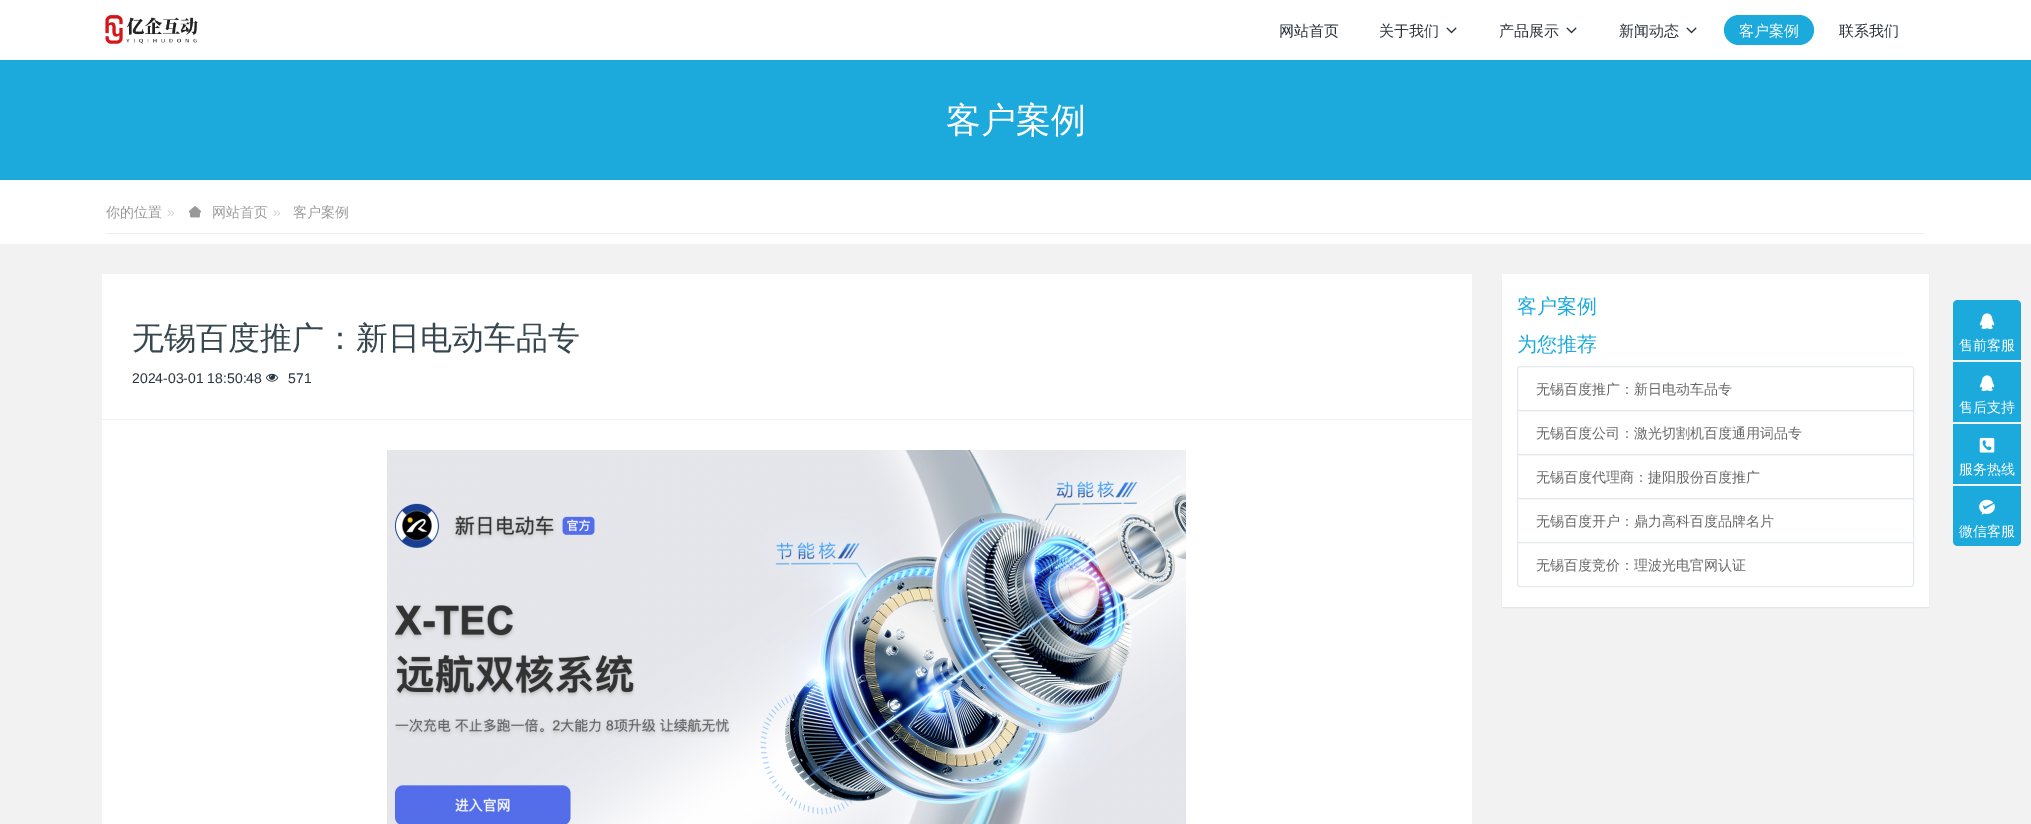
%!PS
<< /PageSize [2031 824] /PageUsesTransparency true >> setpagedevice
/mt/moveto load def
/li/lineto load def
/ct/curveto load def
/cp/closepath load def
/fl/fill load def
/st/stroke load def
/gs/gsave load def
/gr/grestore load def
/co { dup -16 bitshift 255 div exch dup -8 bitshift 255 and 255 div exch 255 and 255 div setrgbcolor } def
/fn { [ exch dup neg 0 0 3 -1 roll 0 0 ] selectfont } def
/tx { co fn moveto show } def
/bx { co rectfill } def
/al { dup .setfillconstantalpha .setstrokeconstantalpha } def
/rr { 5 dict begin { /r /h /w /y /x } { exch def } forall
  x r add y moveto x w add y 2 copy h add r arct x w add y h add x 1 index r arct
  x y h add x y r arct x y 2 copy exch w add exch r arct closepath end } def
/sh { 12 dict begin { /a /b /q /h /w /y /x } { exch def } forall gsave /was 0 def
  9 -2 -9 { dup b mul 4 div /e exch def 1 sub .425 mul 2.718 exch exp 1 add a .99 .min exch div /now exch def
    1 1 now sub 1 was sub div sub al /was now def
    w h .min e 2 mul add 0 gt { x e sub y e sub w e 2 mul add h e 2 mul add
      q e add b .6 mul add w h .min 2 div e add .min 0 .max rr fill } if } for grestore end } def
/im { 5 dict begin { /h /w /y /x /name } { exch def } forall
  gsave x y translate w h scale
  w h 8 [w 0 0 h 0 0] name (r) file false 3 colorimage grestore end } def
0 .pushpdf14devicefilter
0 824 translate 1 -1 scale
4 setmiterlimit
0 0 2031 824 16#FFFFFF bx
(media/1.raw) 105 14 93 30 im
(media/2.raw) 1446 27 11 7 im
(media/2.raw) 1566 27 11 7 im
(media/2.raw) 1686 27 11 7 im
16#1BAADB co
1724 15 90 30 15 rr fl
0 60 2031 120 16#1BAADB bx
106 233 1819 1 16#EEEEEE bx
(media/3.raw) 188 206 14 12 im
0 244 2031 580 16#F2F2F2 bx
102 274 1370 550 16#FFFFFF bx
102 419 1370 1 16#F0F2F5 bx
(media/4.raw) 265 373 14 9 im
(media/5.raw) 387 450 799 374 im
16#000000 co
1502 275 427 333 1 .5 .05 sh
16#FFFFFF co
1502 274 427 333 1 rr fl
16#E4EAEC co
1520 366.5 mt 1911 366.5 li 1912.5 366.5 1913.5 367.5 1913.5 369 ct 1913.5 410.5 li 1517.5 410.5 li 1517.5 369 li 1517.5 367.5 1518.5 366.5 1520 366.5 ct cp st
1517.5 410.5 396 44 rectstroke
1517.5 454.5 396 44 rectstroke
1517.5 498.5 396 44 rectstroke
16#FFFFFF co
1517.5 542.5 mt 1913.5 542.5 li 1913.5 584 li 1913.5 585.5 1912.5 586.5 1911 586.5 ct 1520 586.5 li 1518.5 586.5 1517.5 585.5 1517.5 584 ct cp gs fl gr
16#E4EAEC co
st
16#1BAADB co
1958 300 mt 2016 300 li 2019 300 2021 302 2021 305 ct 2021 360 li 1953 360 li 1953 305 li 1953 302 1955 300 1958 300 ct cp fl
(media/6.raw) 1979 313 16 17 im
1953 362 68 60 16#1BAADB bx
(media/6.raw) 1979 375 16 17 im
1953 424 68 60 16#1BAADB bx
(media/7.raw) 1979 437 16 16 im
1953 486 mt 2021 486 li 2021 541 li 2021 544 2019 546 2016 546 ct 1958 546 li 1955 546 1953 544 1953 541 ct cp fl
(media/8.raw) 1979 499 16 16 im
(网站首页) 1279 36 /WenQuanYiZenHei-Medium 15 16#2A333C tx
(关于我们) 1379 36 /WenQuanYiZenHei-Medium 15 16#2A333C tx
(产品展示) 1499 36 /WenQuanYiZenHei-Medium 15 16#2A333C tx
(新闻动态) 1619 36 /WenQuanYiZenHei-Medium 15 16#2A333C tx
(客户案例) 1739 36 /WenQuanYiZenHei-Medium 15 16#FFFFFF tx
(联系我们) 1839 36 /WenQuanYiZenHei-Medium 15 16#2A333C tx
(客户案例) 946 132 /WenQuanYiZenHei-Medium 35 16#FFFFFF tx
(你的位置) 106 217 /WenQuanYiZenHei-Medium 14 16#999999 tx
(») 167 217 /LiberationSans-Regular 14 16#CCD5DB tx
(网站首页) 212 217 /WenQuanYiZenHei-Medium 14 16#999999 tx
(») 273 217 /LiberationSans-Regular 14 16#CCD5DB tx
(客户案例) 293 217 /WenQuanYiZenHei-Medium 14 16#999999 tx
(无锡百度推广：新日电动车品专) 132 349 /WenQuanYiZenHei-Medium 32 16#37474F tx
(2024-03-01 18:50:48) 132 383 /LiberationSans-Regular 14 16#2A333C tx
(571) 288 383 /LiberationSans-Regular 14 16#2A333C tx
(客户案例) 1517 313 /WenQuanYiZenHei-Medium 20 16#1BAADB tx
(为您推荐) 1517 351 /WenQuanYiZenHei-Medium 20 16#1BAADB tx
(无锡百度推广：新日电动车品专) 1536 394 /WenQuanYiZenHei-Medium 14 16#666666 tx
(无锡百度公司：激光切割机百度通用词品专) 1536 438 /WenQuanYiZenHei-Medium 14 16#666666 tx
(无锡百度代理商：捷阳股份百度推广) 1536 482 /WenQuanYiZenHei-Medium 14 16#666666 tx
(无锡百度开户：鼎力高科百度品牌名片) 1536 526 /WenQuanYiZenHei-Medium 14 16#666666 tx
(无锡百度竞价：理波光电官网认证) 1536 570 /WenQuanYiZenHei-Medium 14 16#666666 tx
(售前客服) 1959 350 /WenQuanYiZenHei-Medium 14 16#FFFFFF tx
(售后支持) 1959 412 /WenQuanYiZenHei-Medium 14 16#FFFFFF tx
(服务热线) 1959 474 /WenQuanYiZenHei-Medium 14 16#FFFFFF tx
(微信客服) 1959 536 /WenQuanYiZenHei-Medium 14 16#FFFFFF tx
.poppdf14devicefilter showpage
